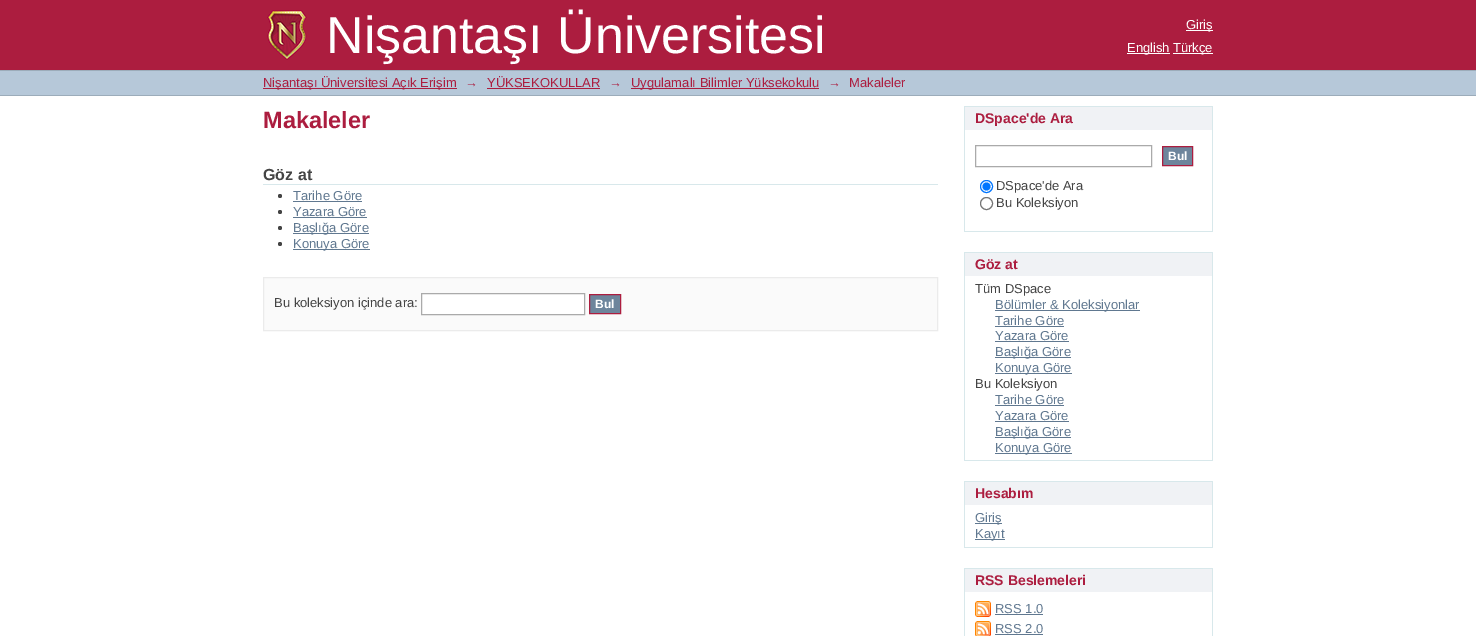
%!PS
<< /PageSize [1476 636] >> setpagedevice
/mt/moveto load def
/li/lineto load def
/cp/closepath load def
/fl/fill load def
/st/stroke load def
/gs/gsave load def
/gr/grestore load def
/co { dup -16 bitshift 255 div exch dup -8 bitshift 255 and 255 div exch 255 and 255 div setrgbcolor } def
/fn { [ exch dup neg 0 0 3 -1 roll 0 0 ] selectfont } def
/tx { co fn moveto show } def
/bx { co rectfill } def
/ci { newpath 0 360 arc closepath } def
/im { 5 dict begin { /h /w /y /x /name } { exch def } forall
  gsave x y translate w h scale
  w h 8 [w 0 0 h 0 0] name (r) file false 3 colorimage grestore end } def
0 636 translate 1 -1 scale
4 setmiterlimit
0 0 1476 636 16#FFFFFF bx
0 0 1476 70 16#AC1D3F bx
(media/1.raw) 267 10 40 50 im
1186 30 27 1 16#FFFFFF bx
1127 53 43 1 16#FFFFFF bx
1173 53 40 1 16#FFFFFF bx
0 71 1476 24 16#B6C8D9 bx
0 70 1476 1 16#9CACBA bx
0 95 1476 1 16#9CACBA bx
263 88 194 1 16#AC1D3F bx
487 88 113 1 16#AC1D3F bx
631 88 188 1 16#AC1D3F bx
263 184 675 1 16#D8E8EB bx
16#444444 co
280 196 2 ci fl
293 201 69 1 16#607890 bx
16#444444 co
280 212 2 ci fl
293 217 74 1 16#607890 bx
16#444444 co
280 228 2 ci fl
293 233 76 1 16#607890 bx
16#444444 co
280 244 2 ci fl
293 249 77 1 16#607890 bx
16#FAFAFA co
263.5 277.5 mt 937.5 277.5 li 937.5 330.5 li 263.5 330.5 li cp gs fl gr
16#EBEBEB co
st
16#FFFFFF co
421.5 293.5 mt 584.5 293.5 li 584.5 314.5 li 421.5 314.5 li cp gs fl gr
16#AAAAAA co
st
16#6D859C co
589.5 294.5 mt 620.5 294.5 li 620.5 313.5 li 589.5 313.5 li cp gs fl gr
16#AC1D3F co
st
965 107 247 23 16#F0F2F5 bx
964 106 249 1 16#D8E8EB bx
1212 106 1 126 16#D8E8EB bx
964 106 1 24 16#D8E8EB bx
964 231 249 1 16#D8E8EB bx
964 130 1 102 16#D8E8EB bx
16#AAAAAA co
975.5 145.5 176 21 rectstroke
16#6D859C co
1162.5 146.5 mt 1192.5 146.5 li 1192.5 165.5 li 1162.5 165.5 li cp gs fl gr
16#AC1D3F co
st
16#0075FF co
986.5 186.5 6 ci st
986.5 186.5 4 ci fl
16#767676 co
986.5 203.5 6 ci st
965 253 247 23 16#F0F2F5 bx
964 252 249 1 16#D8E8EB bx
1212 252 1 209 16#D8E8EB bx
964 252 1 24 16#D8E8EB bx
964 460 249 1 16#D8E8EB bx
964 276 1 185 16#D8E8EB bx
995 310 145 1 16#607890 bx
995 326 69 1 16#607890 bx
995 341 74 1 16#607890 bx
995 357 76 1 16#607890 bx
995 373 77 1 16#607890 bx
995 405 69 1 16#607890 bx
995 421 74 1 16#607890 bx
995 437 76 1 16#607890 bx
995 453 77 1 16#607890 bx
965 482 247 23 16#F0F2F5 bx
964 481 249 1 16#D8E8EB bx
1212 481 1 67 16#D8E8EB bx
964 481 1 24 16#D8E8EB bx
964 547 249 1 16#D8E8EB bx
964 505 1 43 16#D8E8EB bx
975 523 27 1 16#607890 bx
975 539 30 1 16#607890 bx
965 569 247 23 16#F0F2F5 bx
964 568 249 1 16#D8E8EB bx
1212 568 1 68 16#D8E8EB bx
964 568 1 68 16#D8E8EB bx
(media/2.raw) 975 601 16 16 im
995 614 48 1 16#607890 bx
(media/3.raw) 975 621 16 15 im
995 634 48 1 16#607890 bx
(Nişantaşı Üniversitesi) 326 53 /LiberationSans-Regular 52 16#FFFFFF tx
(Giriş) 1186 29 /LiberationSans-Regular 13 16#FFFFFF tx
(English) 1127 52 /LiberationSans-Regular 13 16#FFFFFF tx
(Türkçe) 1173 52 /LiberationSans-Regular 13 16#FFFFFF tx
(Nişantaşı Üniversitesi Açık Erişim) 263 87 /LiberationSans-Regular 13 16#AC1D3F tx
(→) 465 87 /LiberationSans-Regular 13 16#AC1D3F tx
(YÜKSEKOKULLAR) 487 87 /LiberationSans-Regular 13 16#AC1D3F tx
(→) 609 87 /LiberationSans-Regular 13 16#AC1D3F tx
(Uygulamalı Bilimler Yüksekokulu) 631 87 /LiberationSans-Regular 13 16#AC1D3F tx
(→) 828 87 /LiberationSans-Regular 13 16#AC1D3F tx
(Makaleler) 849 87 /LiberationSans-Regular 13 16#AC1D3F tx
(Makaleler) 263 128 /LiberationSans-Bold 23.5 16#AC1D3F tx
(Göz at) 263 180 /LiberationSans-Bold 16 16#444444 tx
(Tarihe Göre) 293 200 /LiberationSans-Regular 13 16#607890 tx
(Yazara Göre) 293 216 /LiberationSans-Regular 13 16#607890 tx
(Başlığa Göre) 293 232 /LiberationSans-Regular 13 16#607890 tx
(Konuya Göre) 293 248 /LiberationSans-Regular 13 16#607890 tx
(Bu koleksiyon içinde ara:) 274 307 /LiberationSans-Regular 13 16#444444 tx
(Bul) 595 308 /LiberationSans-Bold 12 16#FFFFFF tx
(DSpace'de Ara) 975 123 /LiberationSans-Bold 14 16#AC1D3F tx
(Bul) 1168 160 /LiberationSans-Bold 12 16#FFFFFF tx
(DSpace'de Ara) 996 190 /LiberationSans-Regular 13 16#444444 tx
(Bu Koleksiyon) 996 207 /LiberationSans-Regular 13 16#444444 tx
(Göz at) 975 269 /LiberationSans-Bold 14 16#AC1D3F tx
(Tüm DSpace) 975 293 /LiberationSans-Regular 13 16#444444 tx
(Bölümler & Koleksiyonlar) 995 309 /LiberationSans-Regular 13 16#607890 tx
(Tarihe Göre) 995 325 /LiberationSans-Regular 13 16#607890 tx
(Yazara Göre) 995 340 /LiberationSans-Regular 13 16#607890 tx
(Başlığa Göre) 995 356 /LiberationSans-Regular 13 16#607890 tx
(Konuya Göre) 995 372 /LiberationSans-Regular 13 16#607890 tx
(Bu Koleksiyon) 975 388 /LiberationSans-Regular 13 16#444444 tx
(Tarihe Göre) 995 404 /LiberationSans-Regular 13 16#607890 tx
(Yazara Göre) 995 420 /LiberationSans-Regular 13 16#607890 tx
(Başlığa Göre) 995 436 /LiberationSans-Regular 13 16#607890 tx
(Konuya Göre) 995 452 /LiberationSans-Regular 13 16#607890 tx
(Hesabım) 975 498 /LiberationSans-Bold 14 16#AC1D3F tx
(Giriş) 975 522 /LiberationSans-Regular 13 16#607890 tx
(Kayıt) 975 538 /LiberationSans-Regular 13 16#607890 tx
(RSS Beslemeleri) 975 585 /LiberationSans-Bold 14 16#AC1D3F tx
(RSS 1.0) 995 613 /LiberationSans-Regular 13 16#607890 tx
(RSS 2.0) 995 633 /LiberationSans-Regular 13 16#607890 tx
showpage
